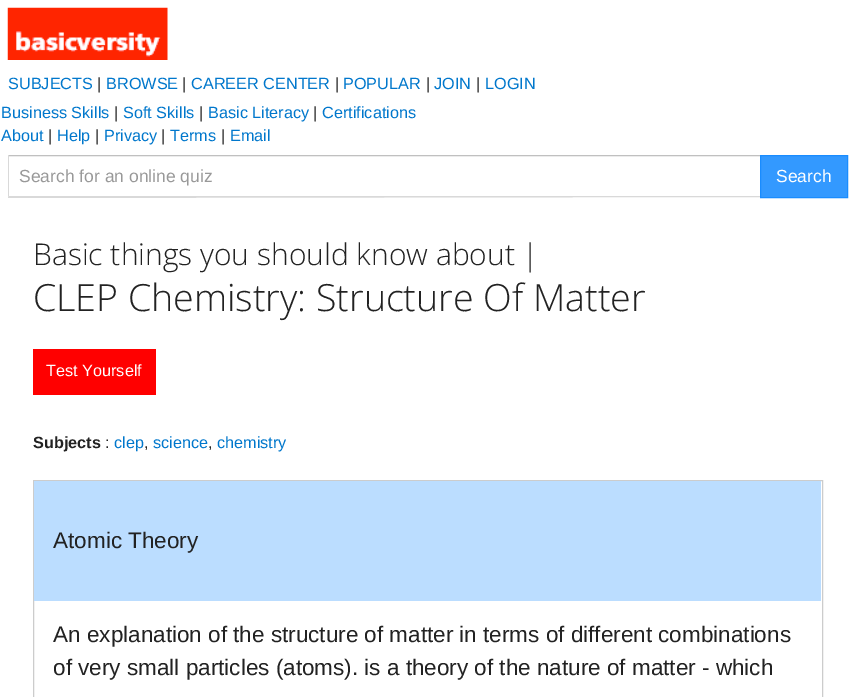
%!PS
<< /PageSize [854 697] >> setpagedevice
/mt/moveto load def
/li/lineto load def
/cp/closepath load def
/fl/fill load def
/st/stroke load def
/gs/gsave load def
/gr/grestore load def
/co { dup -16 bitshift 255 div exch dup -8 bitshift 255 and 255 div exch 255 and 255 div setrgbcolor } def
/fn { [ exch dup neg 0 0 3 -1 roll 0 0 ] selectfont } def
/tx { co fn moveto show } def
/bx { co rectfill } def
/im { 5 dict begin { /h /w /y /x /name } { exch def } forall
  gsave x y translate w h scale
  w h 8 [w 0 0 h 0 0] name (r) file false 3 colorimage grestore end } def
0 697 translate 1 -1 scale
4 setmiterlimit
0 0 854 697 16#FFFFFF bx
(media/1.raw) 7 7 161 53 im
9 156 751 1 16#ECECEC bx
16#C0C0C0 co
9 155 mt 8 156 li 9 156 li 760 156 li 761 155 li cp fl
16#D9D9D9 co
8 198 mt 8 197 li 9 196 li 760 196 li 761 197 li cp fl
8 156 mt 8 197 li 9 196 li 9 156 li cp fl
16#3399FF co
760.5 155.5 mt 847.5 155.5 li 847.5 197.5 li 760.5 197.5 li cp gs fl gr
16#198CFF co
st
33 349 123 46 16#FF0000 bx
16#CCCCCC co
33.5 480.5 789 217 rectstroke
34 481 787 120 16#BBDDFF bx
(SUBJECTS) 8 89 /LiberationSans-Regular 16.25 16#0077CC tx
(|) 97 89 /LiberationSans-Regular 16.25 16#222222 tx
(BROWSE) 106 89 /LiberationSans-Regular 16.25 16#0077CC tx
(|) 182 89 /LiberationSans-Regular 16.25 16#222222 tx
(CAREER CENTER) 191 89 /LiberationSans-Regular 16.25 16#0077CC tx
(|) 335 89 /LiberationSans-Regular 16.25 16#222222 tx
(POPULAR) 343 89 /LiberationSans-Regular 16.25 16#0077CC tx
(|) 426 89 /LiberationSans-Regular 16.25 16#222222 tx
(JOIN) 434 89 /LiberationSans-Regular 16.25 16#0077CC tx
(|) 476 89 /LiberationSans-Regular 16.25 16#222222 tx
(LOGIN) 485 89 /LiberationSans-Regular 16.25 16#0077CC tx
(Business Skills) 1 118 /LiberationSans-Regular 16.25 16#0077CC tx
(|) 114 118 /LiberationSans-Regular 16.25 16#222222 tx
(Soft Skills) 123 118 /LiberationSans-Regular 16.25 16#0077CC tx
(|) 199 118 /LiberationSans-Regular 16.25 16#222222 tx
(Basic Literacy) 208 118 /LiberationSans-Regular 16.25 16#0077CC tx
(|) 313 118 /LiberationSans-Regular 16.25 16#222222 tx
(Certifications) 322 118 /LiberationSans-Regular 16.25 16#0077CC tx
(About) 1 141 /LiberationSans-Regular 16.25 16#0077CC tx
(|) 48 141 /LiberationSans-Regular 16.25 16#222222 tx
(Help) 57 141 /LiberationSans-Regular 16.25 16#0077CC tx
(|) 95 141 /LiberationSans-Regular 16.25 16#222222 tx
(Privacy) 104 141 /LiberationSans-Regular 16.25 16#0077CC tx
(|) 161 141 /LiberationSans-Regular 16.25 16#222222 tx
(Terms) 170 141 /LiberationSans-Regular 16.25 16#0077CC tx
(|) 221 141 /LiberationSans-Regular 16.25 16#222222 tx
(Email) 230 141 /LiberationSans-Regular 16.25 16#0077CC tx
(Search for an online quiz) 19 182 /LiberationSans-Regular 17.5 16#999999 tx
(Search) 776 182 /LiberationSans-Regular 17.5 16#FFFFFF tx
(Basic things you should know about |) 33 265 /OpenSans-Light 30 16#222222 tx
(CLEP Chemistry: Structure Of Matter) 33 311 /OpenSans-Light 37.5 16#222222 tx
(Test Yourself) 46 376 /LiberationSans-Regular 16.25 16#FFFFFF tx
(Subjects) 33 448 /LiberationSans-Bold 16.25 16#222222 tx
(:) 105 448 /LiberationSans-Regular 16.25 16#222222 tx
(clep) 114 448 /LiberationSans-Regular 16.25 16#0077CC tx
(science) 153 448 /LiberationSans-Regular 16.25 16#0077CC tx
(chemistry) 217 448 /LiberationSans-Regular 16.25 16#0077CC tx
(,) 144 448 /LiberationSans-Regular 16.25 16#222222 tx
(,) 208 448 /LiberationSans-Regular 16.25 16#222222 tx
(Atomic Theory) 53 548 /LiberationSans-Regular 22.5 16#222222 tx
(An explanation of the structure of matter in terms of different combinations) 53 642 /LiberationSans-Regular 22.5 16#222222 tx
(of very small particles \(atoms\). is a theory of the nature of matter - which) 53 675 /LiberationSans-Regular 22.5 16#222222 tx
showpage
